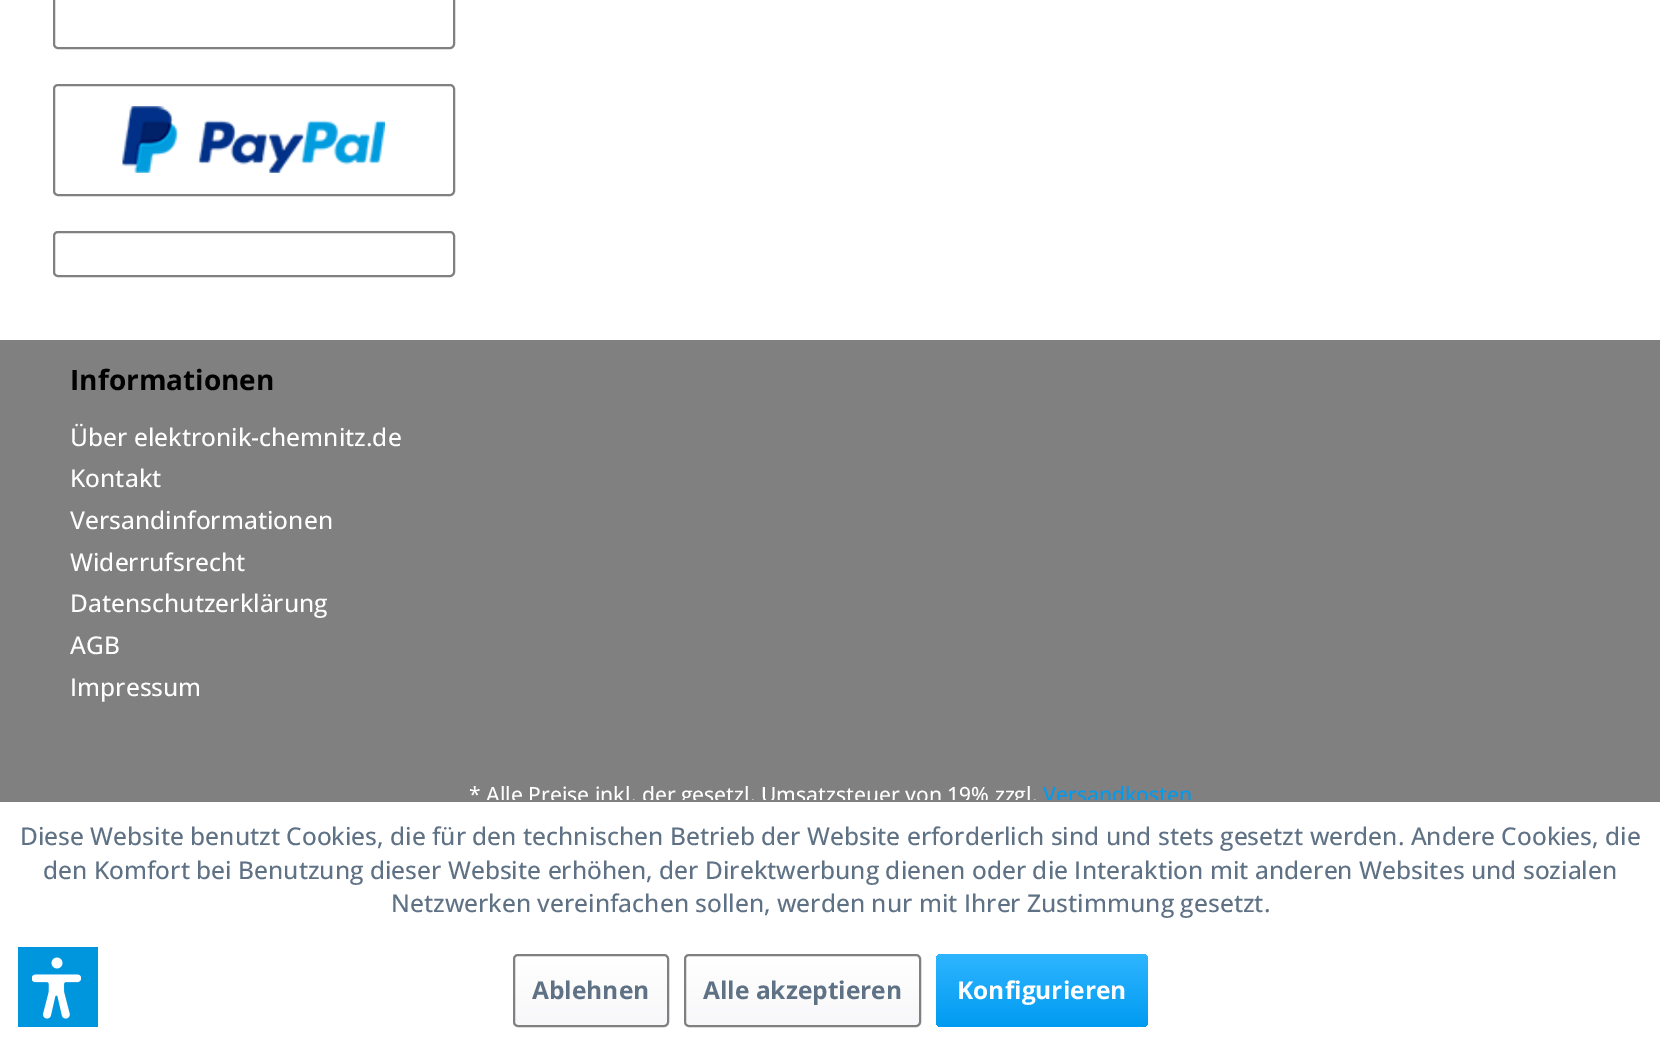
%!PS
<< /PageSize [1660 1044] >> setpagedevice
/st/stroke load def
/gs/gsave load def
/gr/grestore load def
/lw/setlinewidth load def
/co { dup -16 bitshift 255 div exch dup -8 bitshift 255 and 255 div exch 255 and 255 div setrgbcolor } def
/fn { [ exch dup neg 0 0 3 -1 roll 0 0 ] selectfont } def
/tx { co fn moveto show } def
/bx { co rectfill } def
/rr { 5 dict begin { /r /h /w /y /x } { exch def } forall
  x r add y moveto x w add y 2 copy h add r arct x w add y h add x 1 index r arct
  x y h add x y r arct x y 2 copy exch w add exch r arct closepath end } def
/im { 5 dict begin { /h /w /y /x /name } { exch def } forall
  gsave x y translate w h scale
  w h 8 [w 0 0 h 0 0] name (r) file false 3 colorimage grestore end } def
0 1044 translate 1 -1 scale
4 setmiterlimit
0 0 1660 1044 16#808080 bx
0 0 1660 340 16#FFFFFF bx
16#808080 co
2 lw
54 -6 400 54 4 rr st
54 85 400 110 4 rr st
(media/1.raw) 122 106 263 67 im
54 232 400 44 4 rr st
(Informationen) 70 390 /OpenSans-Bold 28 16#000000 tx
(Über elektronik-chemnitz.de) 70 446 /OpenSans-Medium 24.5 16#FFFFFF tx
(Kontakt) 70 487 /OpenSans-Medium 24.5 16#FFFFFF tx
(Versandinformationen) 70 529 /OpenSans-Medium 24.5 16#FFFFFF tx
(Widerrufsrecht) 70 571 /OpenSans-Medium 24.5 16#FFFFFF tx
(Datenschutzerklärung) 70 612 /OpenSans-Medium 24.5 16#FFFFFF tx
(AGB) 70 654 /OpenSans-Medium 24.5 16#FFFFFF tx
(Impressum) 70 696 /OpenSans-Medium 24.5 16#FFFFFF tx
(* Alle Preise inkl. der gesetzl. Umsatzsteuer von 19% zzgl.) 469 802 /OpenSans-Medium 21 16#FFFFFF tx
(Versandkosten) 1043 802 /OpenSans-Medium 21 16#009BF1 tx
0 802 1660 242 16#FFFFFF bx
486 800 705 2 16#808080 bx
(Diese Website benutzt Cookies, die für den technischen Betrieb der Website erforderlich sind und stets gesetzt werden. Andere Cookies, die) 20 845 /OpenSans-Medium 24.5 16#5F7285 tx
(den Komfort bei Benutzung dieser Website erhöhen, der Direktwerbung dienen oder die Interaktion mit anderen Websites und sozialen) 43 879 /OpenSans-Medium 24.5 16#5F7285 tx
(Netzwerken vereinfachen sollen, werden nur mit Ihrer Zustimmung gesetzt.) 391 912 /OpenSans-Medium 24.5 16#5F7285 tx
gs 515 956 152 70 4 rr clip newpath
<< /ShadingType 2 /ColorSpace /DeviceRGB /Coords [591 956 591 1026] /Extend [true true] /Function << /FunctionType 2 /Domain [0 1] /C0 [1 1 1] /C1 [.973 .973 .98] /N 1 >> >> shfill gr
16#808080 co
514 955 154 71 4 rr st
(Ablehnen) 532 999 /OpenSans-Bold 24.5 16#5F7285 tx
gs 686 956 233 70 4 rr clip newpath
<< /ShadingType 2 /ColorSpace /DeviceRGB /Coords [802 956 802 1026] /Extend [true true] /Function << /FunctionType 2 /Domain [0 1] /C0 [1 1 1] /C1 [.973 .973 .98] /N 1 >> >> shfill gr
16#808080 co
685 955 235 71 4 rr st
(Alle akzeptieren) 703 999 /OpenSans-Bold 24.5 16#5F7285 tx
gs 936 954 212 73 5 rr clip newpath
<< /ShadingType 2 /ColorSpace /DeviceRGB /Coords [1042 954 1042 1027] /Extend [true true] /Function << /FunctionType 2 /Domain [0 1] /C0 [.184 .71 1] /C1 [0 .608 .945] /N 1 >> >> shfill gr
(Konfigurieren) 957 999 /OpenSans-Bold 24.5 16#FFFFFF tx
18 947 80 80 16#0096DE bx
(media/2.raw) 32 957 49 62 im
showpage
